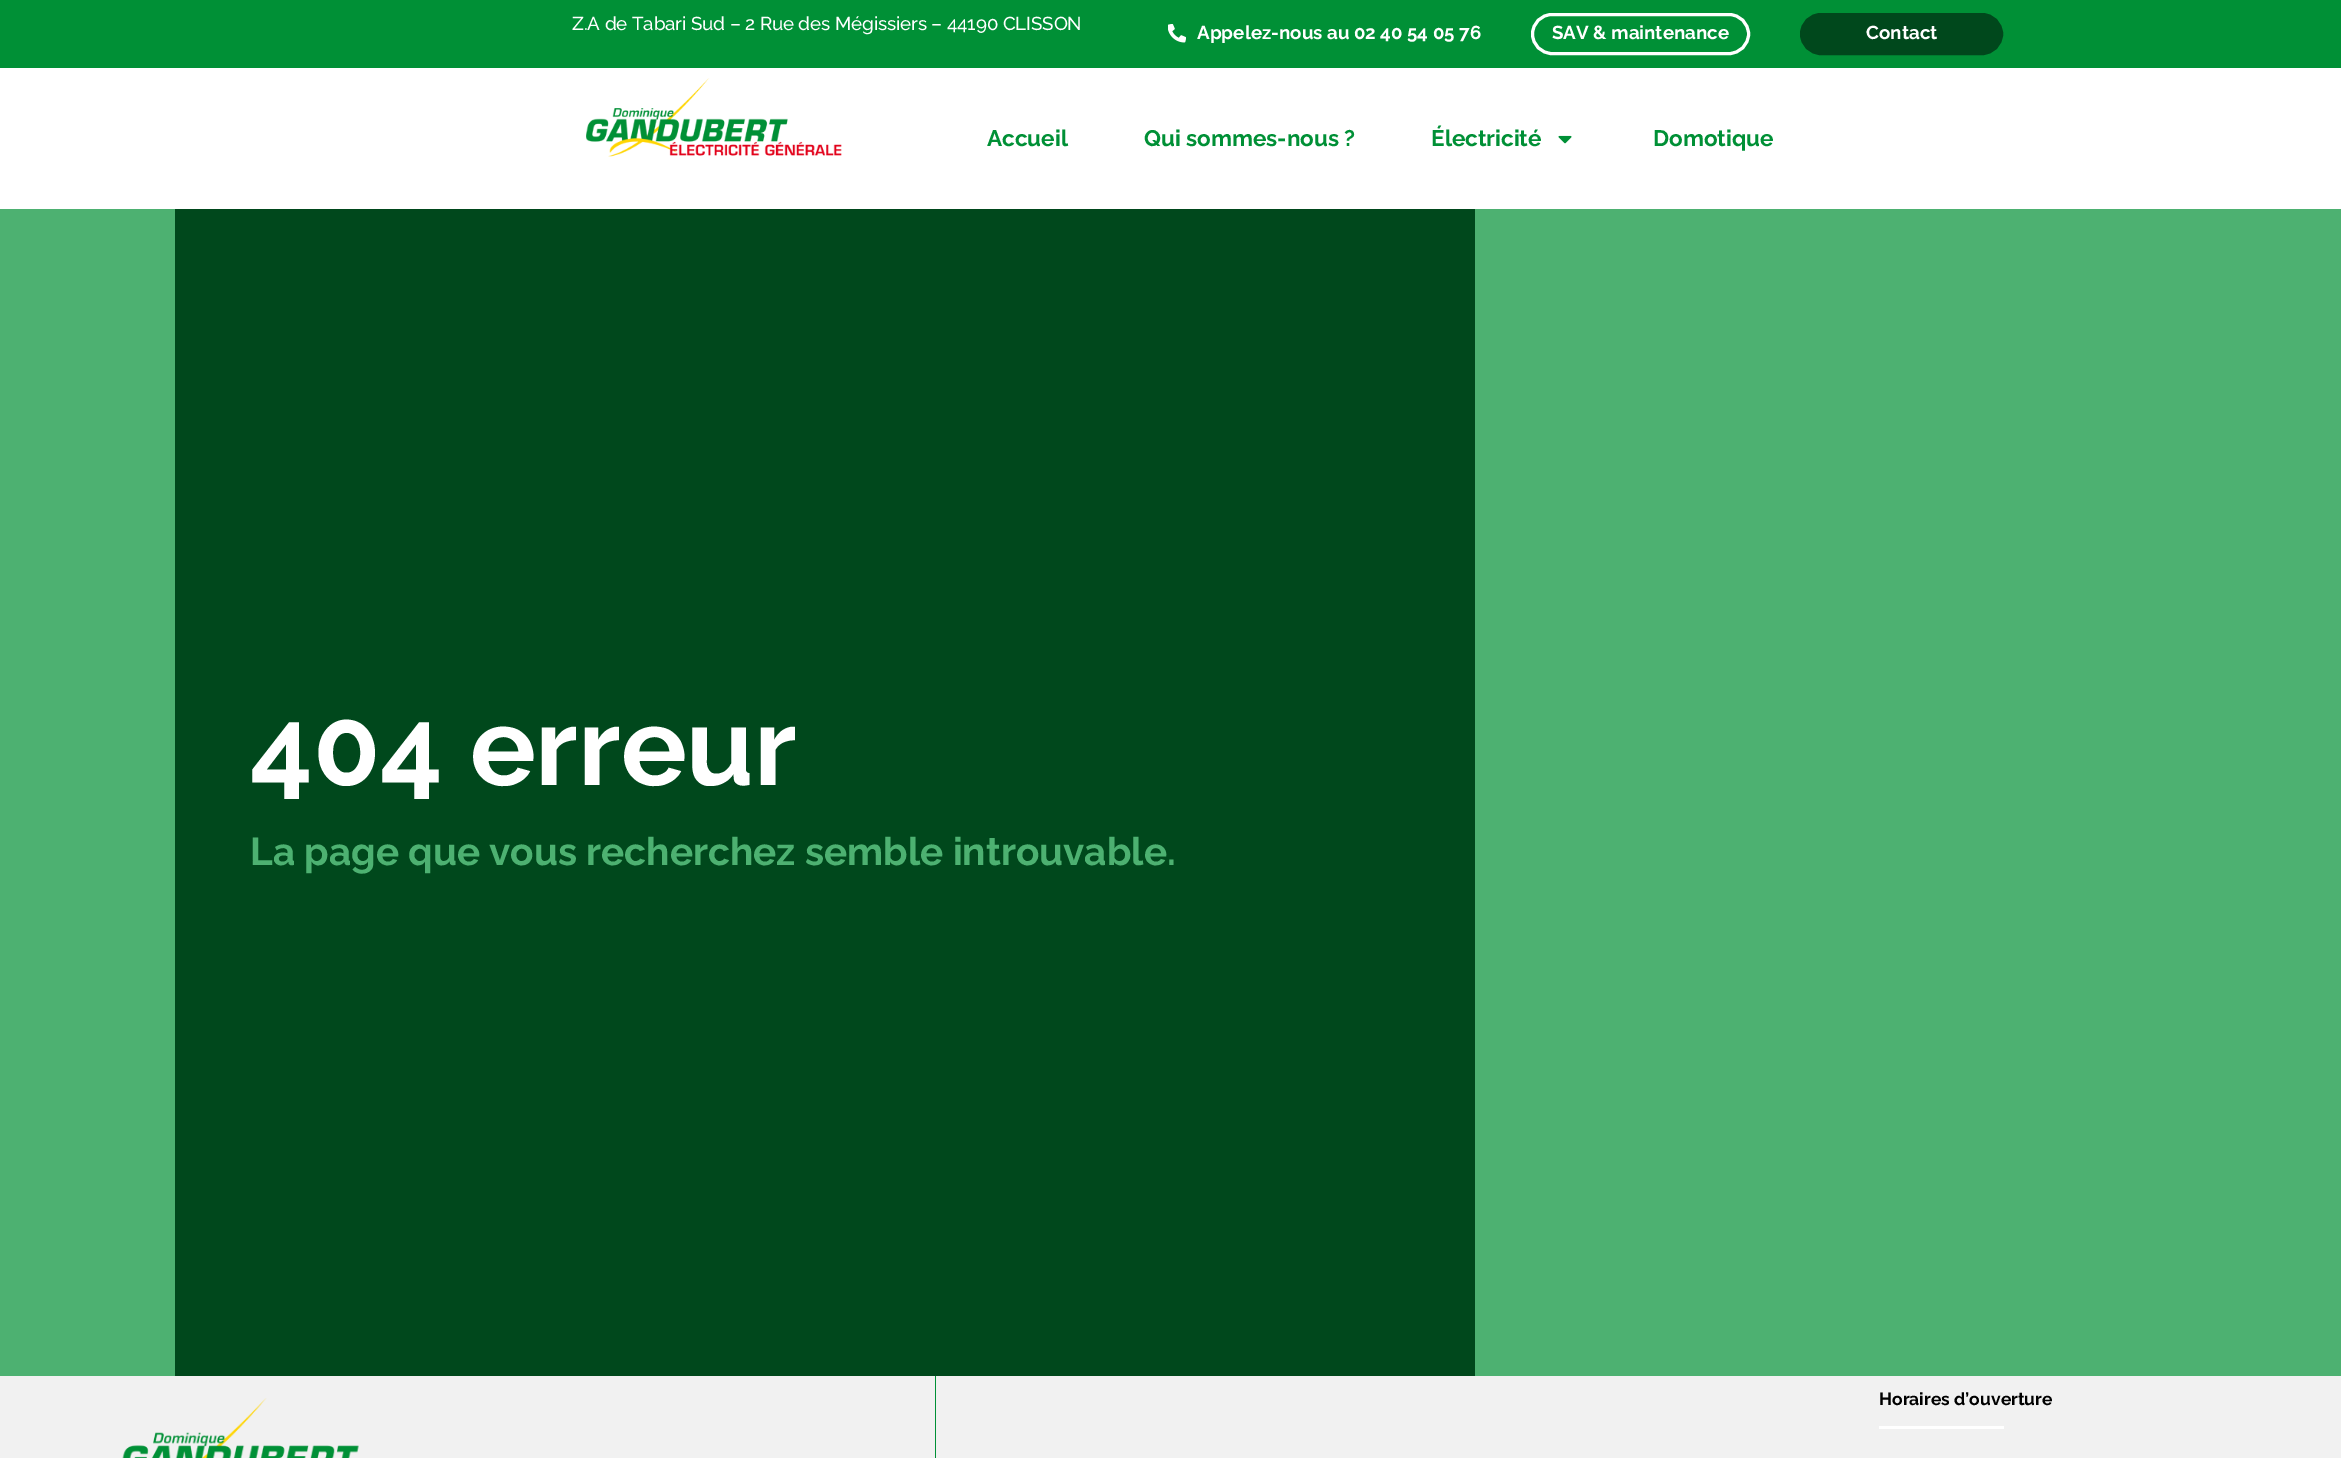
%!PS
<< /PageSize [2341 1458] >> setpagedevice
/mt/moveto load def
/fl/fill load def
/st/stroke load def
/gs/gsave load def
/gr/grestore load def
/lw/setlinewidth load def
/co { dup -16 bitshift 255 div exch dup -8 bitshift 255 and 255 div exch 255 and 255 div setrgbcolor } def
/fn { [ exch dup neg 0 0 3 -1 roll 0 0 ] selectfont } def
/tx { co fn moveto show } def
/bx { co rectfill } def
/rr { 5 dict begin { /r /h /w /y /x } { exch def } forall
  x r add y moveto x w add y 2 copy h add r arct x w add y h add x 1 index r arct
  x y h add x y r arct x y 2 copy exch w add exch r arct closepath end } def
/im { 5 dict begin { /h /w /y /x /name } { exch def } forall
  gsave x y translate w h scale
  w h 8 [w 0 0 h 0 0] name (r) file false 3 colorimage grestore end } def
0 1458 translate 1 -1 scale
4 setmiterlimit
0 0 2341 1458 16#FFFFFF bx
0 0 2341 68 16#009036 bx
(media/1.raw) 1168 24 18 19 im
16#FFFFFF co
3 lw
1532.5 14.5 216 39 19.5 rr st
16#00481C co
1801.5 14.5 200 39 19.5 rr gs fl gr
st
(media/2.raw) 586 78 256 79 im
(media/3.raw) 1558 135 14 9 im
0 209 2341 1167 16#4DB171 bx
175 209 1300 1167 16#00481C bx
0 1376 2341 82 16#F1F1F1 bx
935 1376 1 82 16#009036 bx
(media/4.raw) 122 1398 237 60 im
1879 1426 125 3 16#FFFFFF bx
/Raleway-Medium 18.75 fn
572 30 mt -.12 0 (Z.A de Tabari Sud – 2 Rue des Mégissiers – 44190 CLISSON) ashow
(Appelez-nous au 02 40 54 05 76) 1197 39 /Raleway-Bold 18.75 16#FFFFFF tx
(SAV & maintenance) 1552 39 /Raleway-Bold 18.75 16#FFFFFF tx
(Contact) 1866 39 /Raleway-Bold 18.75 16#FFFFFF tx
(Accueil) 987 146 /Raleway-Bold 22.5 16#009036 tx
(Qui sommes-nous ?) 1144 146 /Raleway-Bold 22.5 16#009036 tx
(Électricité) 1431 146 /Raleway-Bold 22.5 16#009036 tx
(Domotique) 1653 146 /Raleway-Bold 22.5 16#009036 tx
(404 erreur) 250 785 /Raleway-Bold 110 16#FFFFFF tx
(La page que vous recherchez semble introuvable.) 250 865 /Raleway-Bold 38.75 16#4DB171 tx
(Horaires d’ouverture) 1879 1405 /Raleway-Bold 17.5 16#000000 tx
showpage
